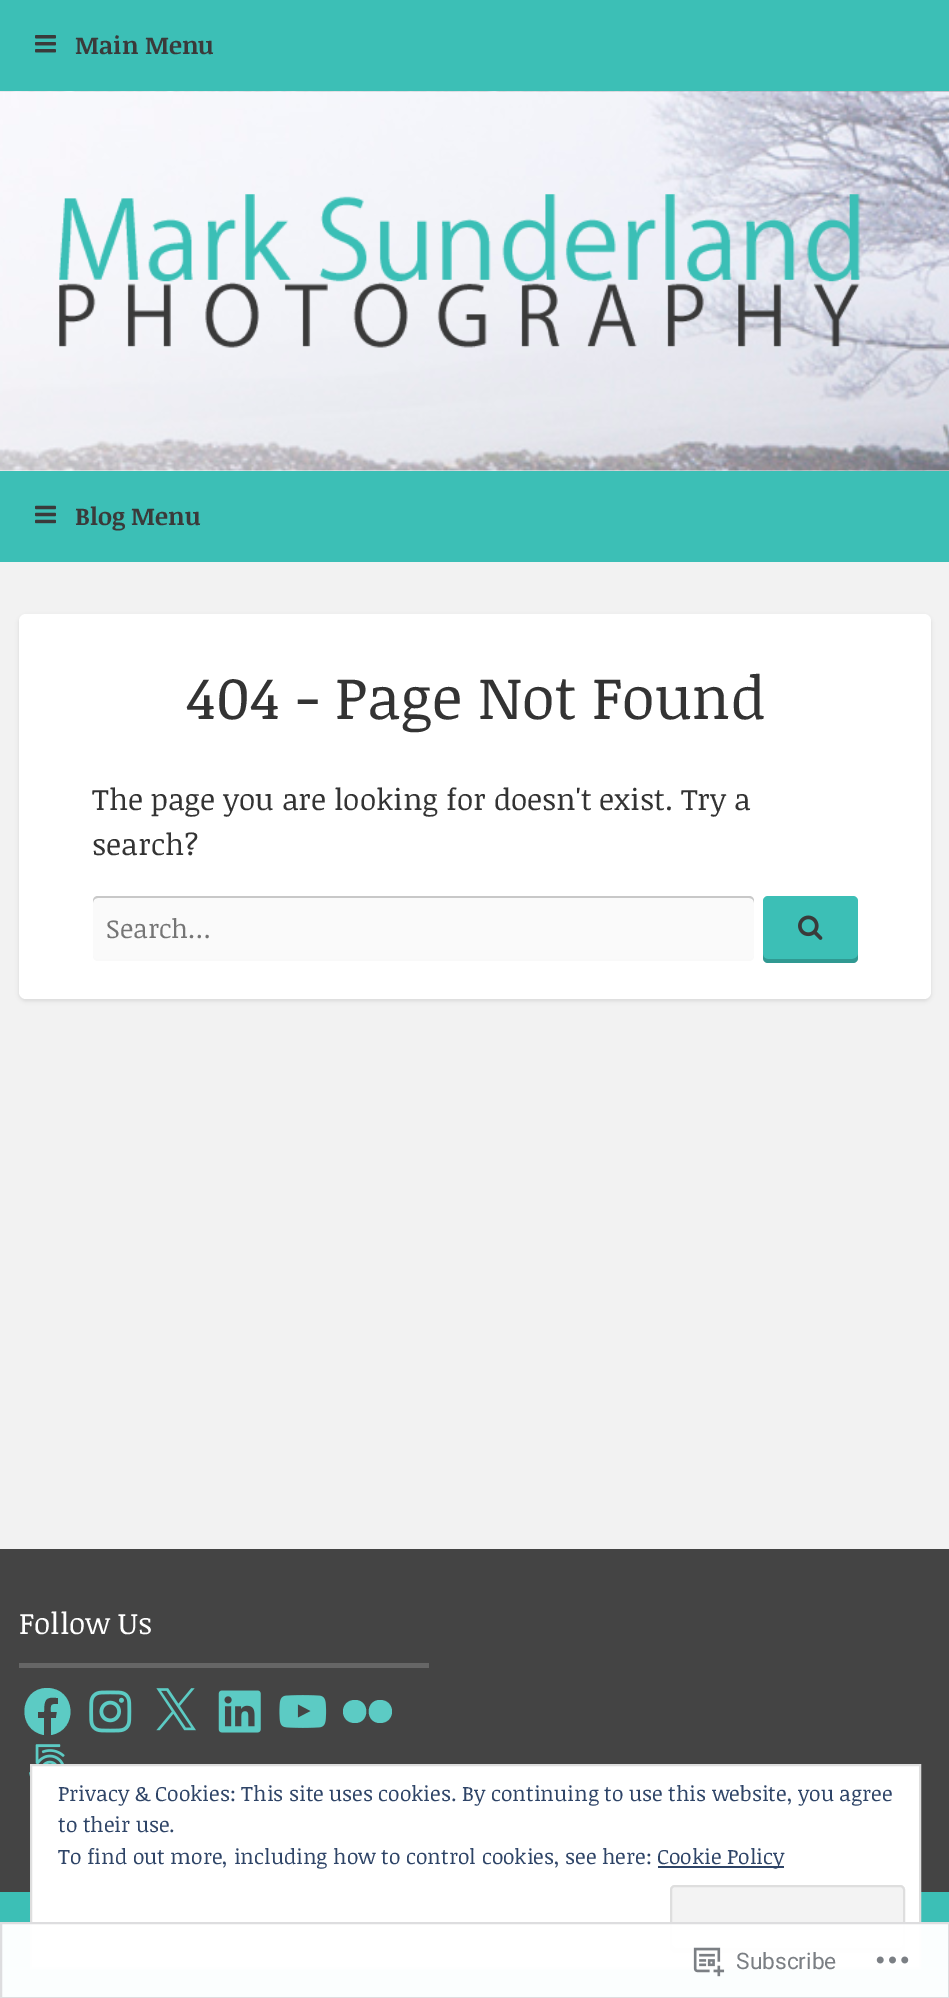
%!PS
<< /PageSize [949 1998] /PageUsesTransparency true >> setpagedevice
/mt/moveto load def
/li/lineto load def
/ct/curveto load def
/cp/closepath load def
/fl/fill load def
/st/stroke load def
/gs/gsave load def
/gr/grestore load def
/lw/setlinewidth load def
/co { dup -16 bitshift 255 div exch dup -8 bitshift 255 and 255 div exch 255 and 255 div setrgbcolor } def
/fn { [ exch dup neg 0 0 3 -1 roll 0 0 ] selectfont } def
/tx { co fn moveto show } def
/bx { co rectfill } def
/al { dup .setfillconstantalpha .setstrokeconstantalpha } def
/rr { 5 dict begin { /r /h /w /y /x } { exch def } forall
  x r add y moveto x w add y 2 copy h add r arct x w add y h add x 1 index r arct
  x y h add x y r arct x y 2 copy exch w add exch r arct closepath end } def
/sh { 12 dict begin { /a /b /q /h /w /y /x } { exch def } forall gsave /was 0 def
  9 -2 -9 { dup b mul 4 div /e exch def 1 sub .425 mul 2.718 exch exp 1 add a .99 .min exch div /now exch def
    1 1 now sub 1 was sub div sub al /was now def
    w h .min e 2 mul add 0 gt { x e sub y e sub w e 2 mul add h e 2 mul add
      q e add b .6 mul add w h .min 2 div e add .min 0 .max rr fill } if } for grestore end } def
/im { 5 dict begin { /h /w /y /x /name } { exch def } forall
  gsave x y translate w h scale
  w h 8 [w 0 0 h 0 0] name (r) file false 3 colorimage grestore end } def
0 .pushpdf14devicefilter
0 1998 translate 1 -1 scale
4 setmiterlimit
0 0 949 1998 16#F2F2F2 bx
0 0 949 91 16#3CBFB6 bx
(media/1.raw) 35 35 21 18 im
(media/2.raw) 0 91 949 380 im
(media/3.raw) 59 194 801 154 im
0 471 949 91 16#3CBFB6 bx
(media/4.raw) 35 505 21 19 im
16#000000 co
19 616 912 385 7 2 .1 sh
16#FFFFFF co
19 614 912 385 7 rr fl
16#F9F9F9 co
93 955 mt 93 956 li 93 959 95 961 98 961 ct 749 961 li 752 961 754 959 754 956 ct 754 955 li 753 957 751 959 749 959 ct 98 959 li 96 959 94 957 93 955 ct cp fl
16#FAFAFA co
93 896 661 63 5 rr fl
16#C8C8C8 co
98 898 mt 749 898 li 752 898 754 900 754 903 ct 754 901 li 754 898 752 896 749 896 ct 98 896 li 95 896 93 898 93 901 ct 93 903 li 93 900 95 898 98 898 ct cp fl
16#3CBFB6 co
763 896 95 67 5 rr fl
0.2 al
16#000000 co
763 954 mt 763 958 li 763 961 765 963 768 963 ct 853 963 li 856 963 858 961 858 958 ct 858 954 li 858 957 855 959 852 959 ct 768 959 li 765 959 763 957 763 954 ct cp fl
1 al
(media/5.raw) 798 915 25 25 im
0 1549 949 343 16#444444 bx
19 1663 410 5 16#666666 bx
16#5CCBC4 co
47 1688 mt 19 1688 16 1730 44 1735 ct 44 1718 li 38 1718 li 38 1712 li 44 1712 li 44 1700 45 1696 58 1698 ct 58 1704 li 50 1704 51 1705 51 1712 ct 57 1712 li 56 1718 li 51 1718 li 51 1735 li 79 1730 76 1688 47 1688 ct cp fl
(media/6.raw) 89 1690 43 43 im
(media/7.raw) 156 1688 40 43 im
(media/8.raw) 218 1690 43 43 im
(media/9.raw) 279 1695 48 33 im
355 1700 mt 339 1700 339 1723 355 1723 ct 370 1723 370 1700 355 1700 ct cp 380 1700 mt 365 1700 365 1723 380 1723 ct 396 1723 396 1700 380 1700 ct cp fl
(media/10.raw) 29 1744 36 33 im
0 1892 949 106 16#3CBFB6 bx
16#FFFFFF co
31 1765 mt 920 1765 li 920 1968 li 31 1968 li cp gs fl gr
16#DEDEDE co
2 lw
st
658 1866 126 2 16#2E4467 bx
16#F3F3F3 co
670 1885 235 68 5 rr fl
16#C2C2C2 co
672 1944 mt 672 1947 li 672 1949 674 1951 676 1951 ct 899 1951 li 901 1951 903 1949 903 1947 ct 903 1944 li 903 1946 901 1948 900 1948 ct 676 1948 li 674 1948 672 1946 672 1944 ct cp fl
16#DEDEDE co
671 1886 233 66 4 rr st
0.98 al
0 1922 949 76 16#FFFFFF bx
16#DCDCDE co
1 1923 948 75 rectstroke
1 al
(media/11.raw) 693 1947 32 30 im
(media/12.raw) 876 1956 33 8 im
(Main Menu) 75 54 /NoticiaText-Bold 24.5 16#3A3A3A tx
(Blog Menu) 75 525 /NoticiaText-Bold 24.5 16#3A3A3A tx
(404 - Page Not Found) 186 719 /NoticiaText-Regular 59.5 16#333333 tx
(The page you are looking for doesn't exist. Try a) 92 810 /NoticiaText-Regular 29.75 16#333333 tx
(search?) 92 855 /NoticiaText-Regular 29.75 16#333333 tx
(Search…) 106 938 /NoticiaText-Regular 26.25 16#757575 tx
(Follow Us) 19 1634 /NoticiaText-Regular 29.75 16#FFFFFF tx
(Privacy & Cookies: This site uses cookies. By continuing to use this website, you agree) 58 1801 /NoticiaText-Regular 21 16#2E4467 tx
(to their use.) 58 1832 /NoticiaText-Regular 21 16#2E4467 tx
(To find out more, including how to control cookies, see here:) 58 1864 /NoticiaText-Regular 21 16#2E4467 tx
(Cookie Policy) 657 1864 /NoticiaText-Regular 21 16#2E4467 tx
(Subscribe) 736 1969 /Roboto-Regular 22.75 16#7B7F84 tx
.poppdf14devicefilter showpage
